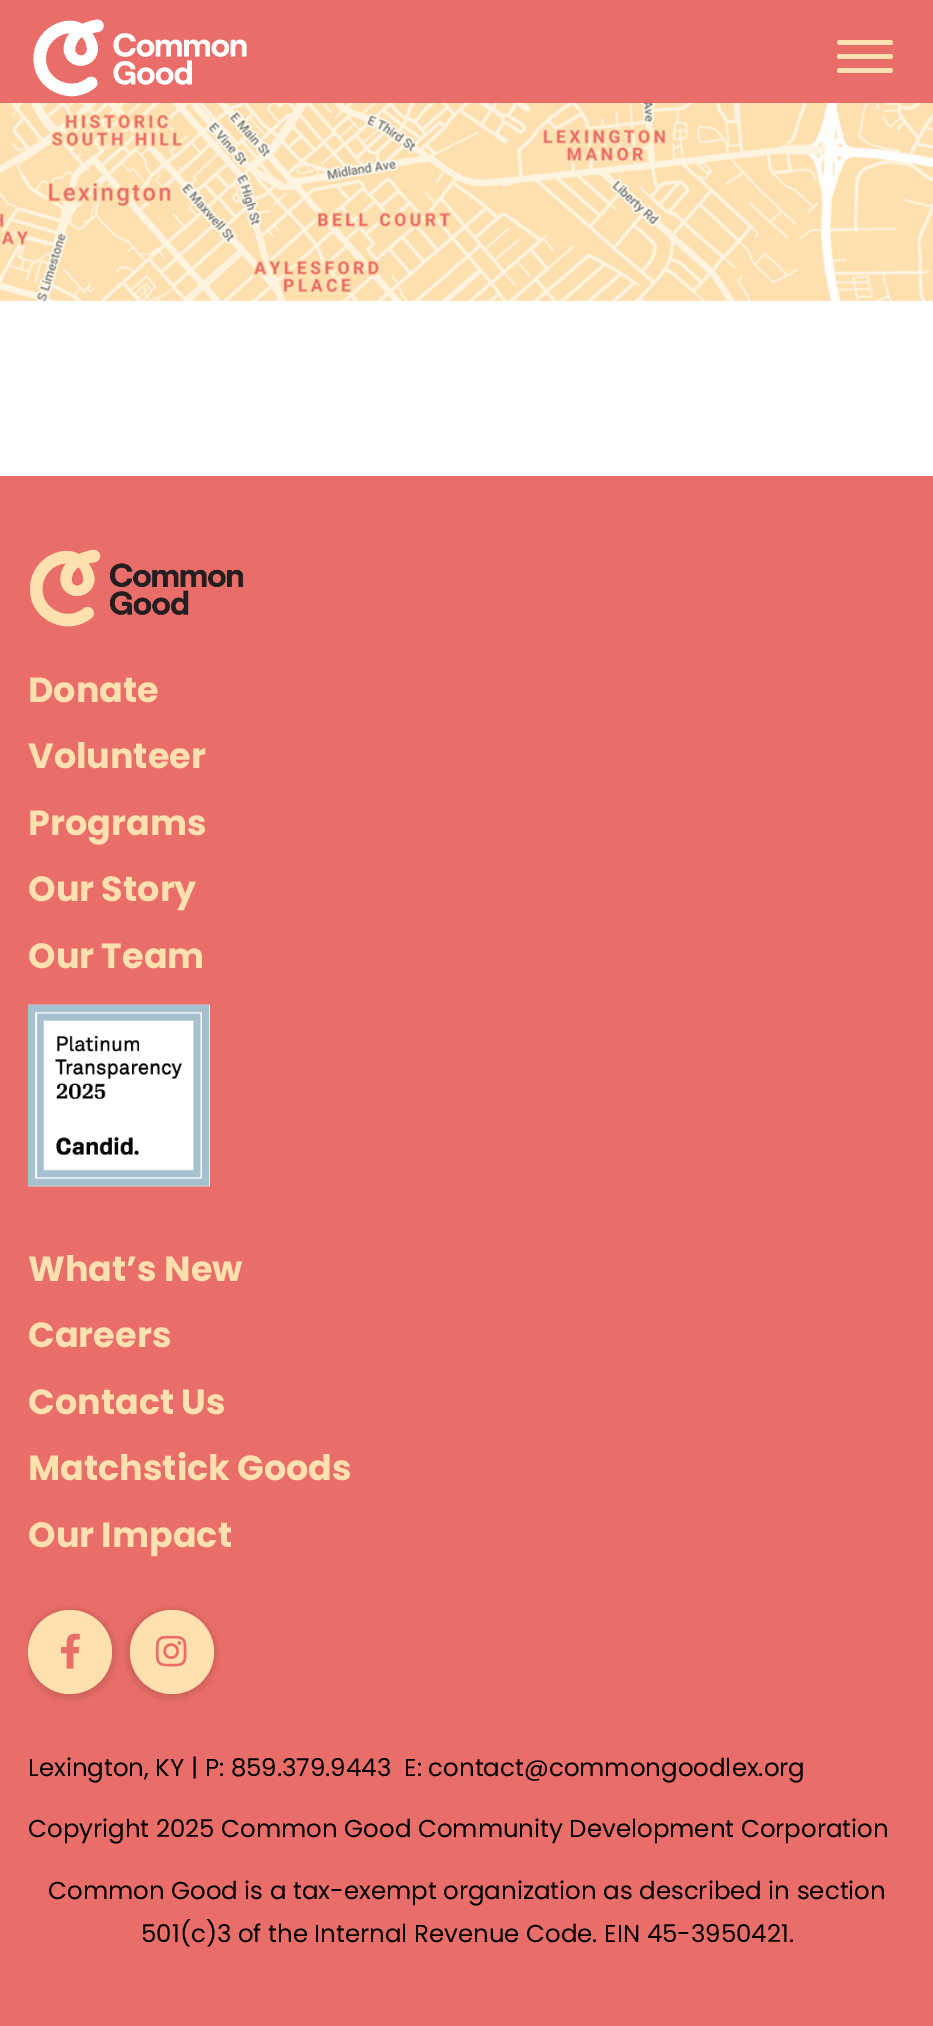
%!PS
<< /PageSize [933 2026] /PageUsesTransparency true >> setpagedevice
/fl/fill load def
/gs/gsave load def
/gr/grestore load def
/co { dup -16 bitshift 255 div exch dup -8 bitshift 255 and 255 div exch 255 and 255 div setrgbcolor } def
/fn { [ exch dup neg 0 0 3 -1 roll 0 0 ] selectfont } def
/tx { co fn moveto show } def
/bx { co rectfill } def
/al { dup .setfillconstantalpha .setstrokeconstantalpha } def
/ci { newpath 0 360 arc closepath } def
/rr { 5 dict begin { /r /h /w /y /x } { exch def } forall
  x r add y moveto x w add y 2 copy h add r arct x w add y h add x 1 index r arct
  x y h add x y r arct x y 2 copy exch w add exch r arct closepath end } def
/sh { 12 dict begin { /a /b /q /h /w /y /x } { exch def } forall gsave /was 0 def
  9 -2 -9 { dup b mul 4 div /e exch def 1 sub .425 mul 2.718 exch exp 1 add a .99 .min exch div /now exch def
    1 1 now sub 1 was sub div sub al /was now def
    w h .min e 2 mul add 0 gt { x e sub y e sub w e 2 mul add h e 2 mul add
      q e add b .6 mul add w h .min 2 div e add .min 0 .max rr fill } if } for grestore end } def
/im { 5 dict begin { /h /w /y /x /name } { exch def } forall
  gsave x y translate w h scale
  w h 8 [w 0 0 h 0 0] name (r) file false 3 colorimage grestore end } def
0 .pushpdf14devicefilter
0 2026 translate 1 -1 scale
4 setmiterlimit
0 0 933 2026 16#FFFFFF bx
0 0 933 103 16#E96D68 bx
(media/1.raw) 33 19 214 78 im
16#FFE0AF co
837 40 56 5 2.5 rr fl
837 54 56 5 2.5 rr fl
837 68 56 5 2.5 rr fl
(media/2.raw) 0 103 933 198 im
0 476 933 1550 16#E96D68 bx
(media/3.raw) 30 549 214 78 im
(media/4.raw) 28 1004 182 183 im
gs
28 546 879 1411 rectclip
16#000000 co
25 1608 91 91 45.5 2.5 .1 sh
gr
16#FFE0AF co
70 1652 42 ci fl
(media/5.raw) 61 1633 19 36 im
16#000000 co
126 1608 91 91 45.5 2.5 .1 sh
16#FFE0AF co
172 1652 42 ci fl
(media/6.raw) 155 1635 32 32 im
(Donate) 28 702 /Poppins-Bold 35 16#FFE0AF tx
(Volunteer) 28 768 /Poppins-Bold 35 16#FFE0AF tx
(Programs) 28 835 /Poppins-Bold 35 16#FFE0AF tx
(Our Story) 28 901 /Poppins-Bold 35 16#FFE0AF tx
(Our Team) 28 968 /Poppins-Bold 35 16#FFE0AF tx
(What’s New) 28 1281 /Poppins-Bold 35 16#FFE0AF tx
(Careers) 28 1347 /Poppins-Bold 35 16#FFE0AF tx
(Contact Us) 28 1414 /Poppins-Bold 35 16#FFE0AF tx
(Matchstick Goods) 28 1480 /Poppins-Bold 35 16#FFE0AF tx
(Our Impact) 28 1547 /Poppins-Bold 35 16#FFE0AF tx
(Lexington, KY | P: 859.379.9443) 28 1776 /Poppins-Regular 24.5 16#000000 tx
(E: contact@commongoodlex.org) 404 1776 /Poppins-Regular 24.5 16#000000 tx
(Copyright 2025 Common Good Community Development Corporation) 28 1837 /Poppins-Regular 24.5 16#000000 tx
(Common Good is a tax-exempt organization as described in section) 48 1899 /Poppins-Regular 24.5 16#000000 tx
(501\(c\)3 of the Internal Revenue Code. EIN 45-3950421.) 141 1942 /Poppins-Regular 24.5 16#000000 tx
.poppdf14devicefilter showpage
